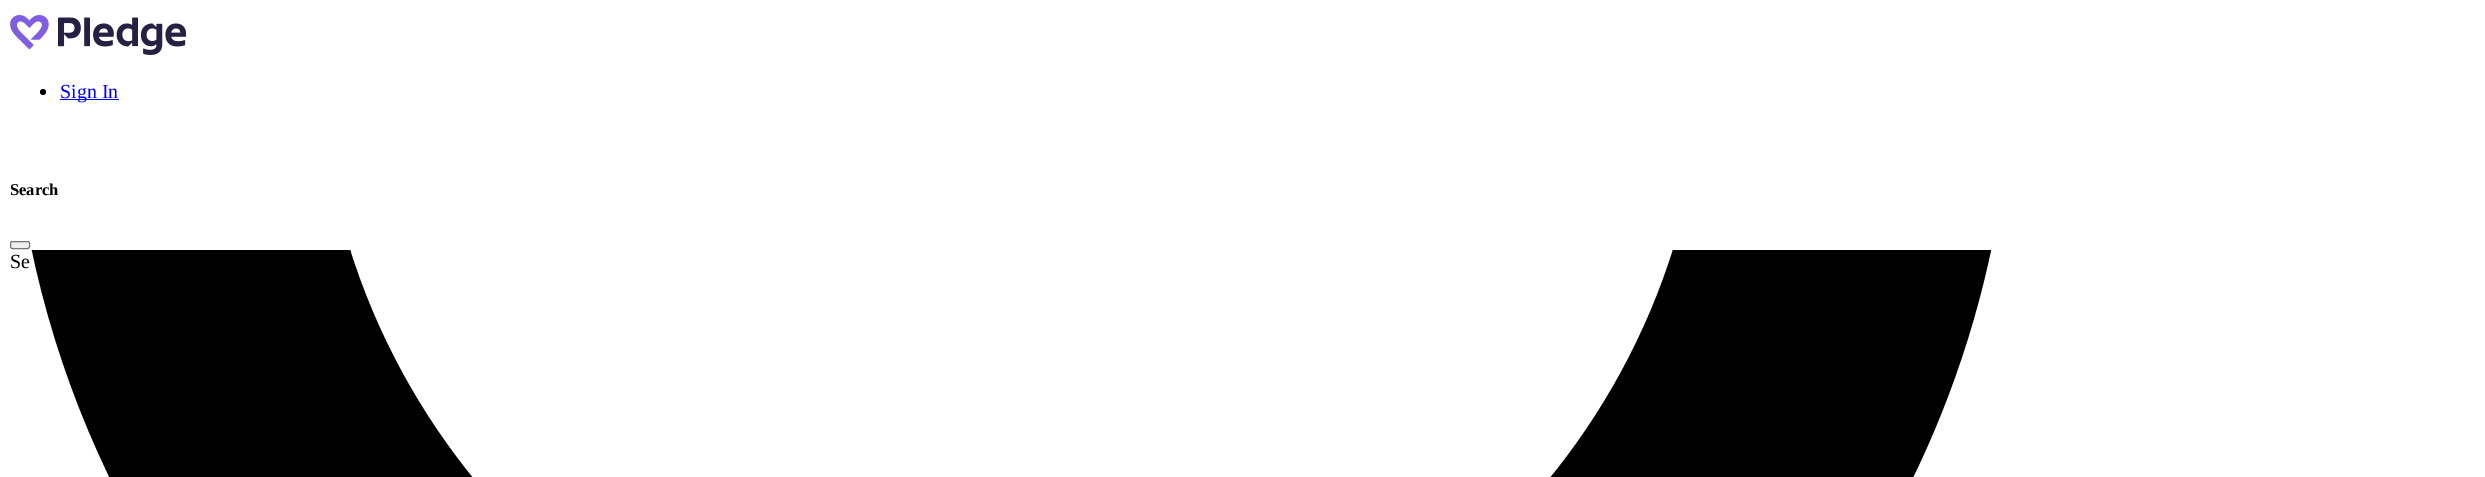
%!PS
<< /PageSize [2485 477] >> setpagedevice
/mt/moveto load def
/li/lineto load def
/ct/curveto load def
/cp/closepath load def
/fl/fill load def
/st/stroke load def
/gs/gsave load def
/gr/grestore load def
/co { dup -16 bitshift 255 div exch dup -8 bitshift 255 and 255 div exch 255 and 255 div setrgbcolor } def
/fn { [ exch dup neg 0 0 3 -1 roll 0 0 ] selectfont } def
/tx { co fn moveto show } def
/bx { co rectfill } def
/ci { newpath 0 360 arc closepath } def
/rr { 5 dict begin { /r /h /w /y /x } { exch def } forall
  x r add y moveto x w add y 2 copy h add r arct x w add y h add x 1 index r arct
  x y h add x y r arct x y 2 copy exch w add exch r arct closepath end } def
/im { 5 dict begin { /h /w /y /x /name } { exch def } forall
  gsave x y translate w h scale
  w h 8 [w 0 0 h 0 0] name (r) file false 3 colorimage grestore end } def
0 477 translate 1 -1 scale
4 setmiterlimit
0 0 2485 477 16#FFFFFF bx
(media/1.raw) 10 15 176 40 im
16#000000 co
43 92 3 ci fl
60 99 59 1 16#0000EE bx
16#EFEFEF co
10.5 241.5 19 7 2 rr gs fl gr
16#767676 co
st
gs
10 250 2465 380 rectclip
16#000000 co
2013 41 mt 2013 262 1941 467 1820 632 ct 2430 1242 li 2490 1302 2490 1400 2430 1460 ct 2370 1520 2272 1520 2212 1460 ct 1602 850 li 1437 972 1232 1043 1011 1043 ct 458 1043 10 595 10 41 ct 10 -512 458 -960 1011 -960 ct 1565 -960 2013 -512 2013 41 ct cp 1011 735 mt 1394 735 1705 424 1705 41 ct 1705 -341 1394 -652 1011 -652 ct 629 -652 318 -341 318 41 ct 318 424 629 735 1011 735 ct cp fl
gr
(Sign In) 60 98 /LiberationSerif-Regular 20 16#0000EE tx
(Search) 10 195 /LiberationSerif-Bold 16.5 16#000000 tx
(Se) 10 268 /LiberationSerif-Regular 20 16#000000 tx
showpage
